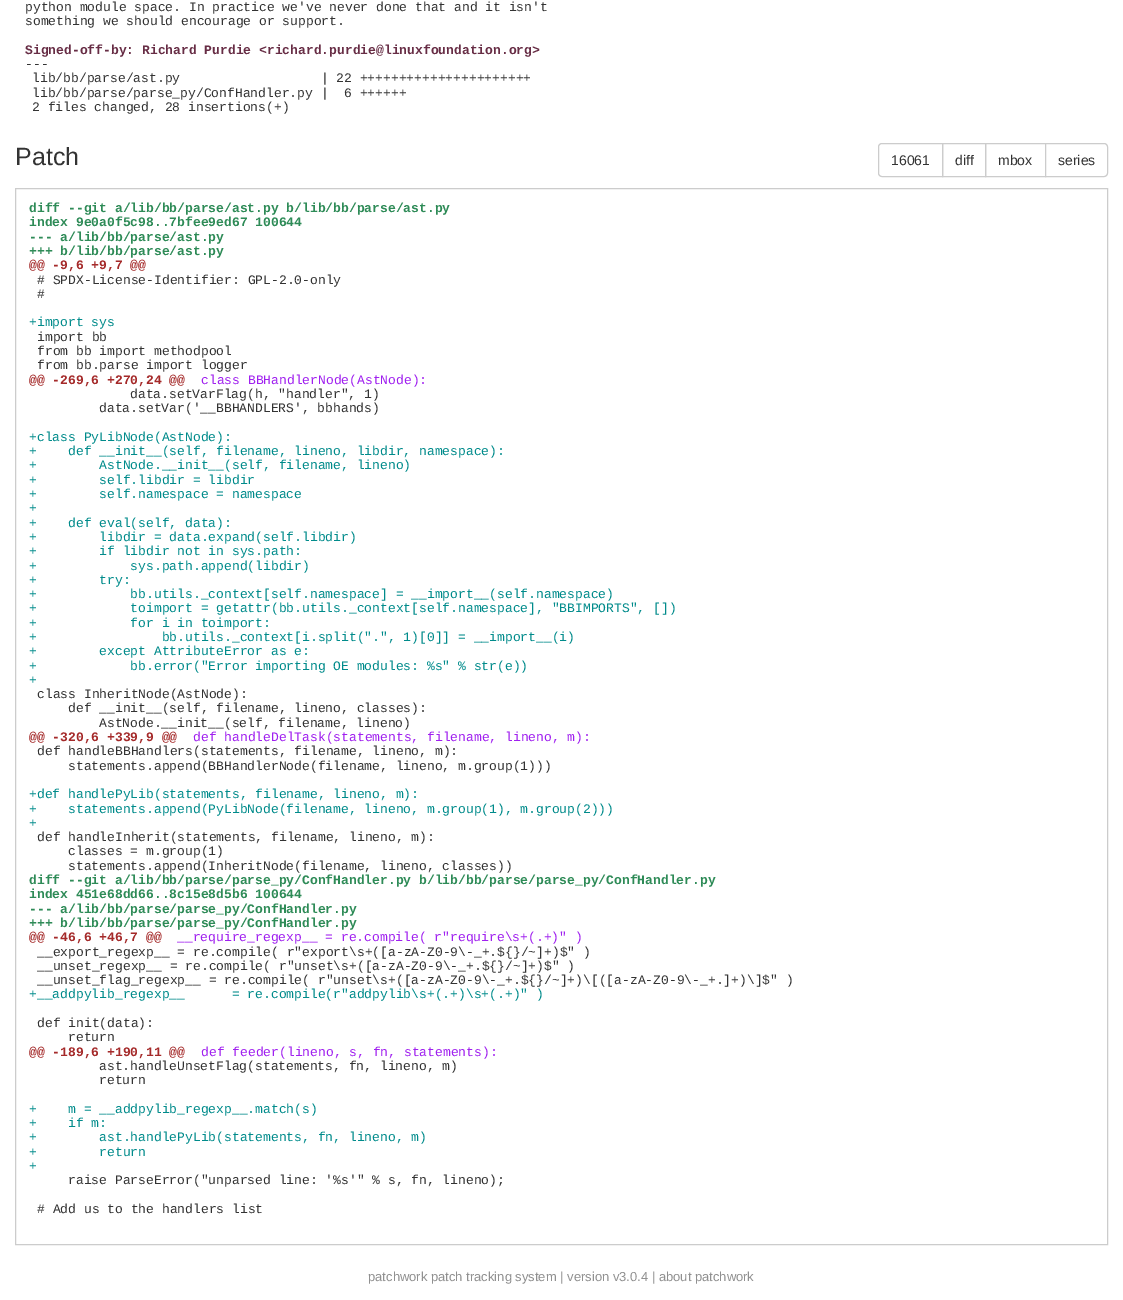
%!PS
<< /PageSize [1123 1300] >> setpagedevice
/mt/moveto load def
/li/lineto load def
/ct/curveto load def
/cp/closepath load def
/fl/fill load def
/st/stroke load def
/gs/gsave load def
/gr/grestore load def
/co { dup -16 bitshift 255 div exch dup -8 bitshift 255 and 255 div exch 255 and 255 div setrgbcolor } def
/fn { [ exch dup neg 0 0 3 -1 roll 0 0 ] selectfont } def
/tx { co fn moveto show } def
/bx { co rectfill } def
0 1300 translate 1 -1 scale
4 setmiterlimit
0 0 1123 1300 16#FFFFFF bx
16#CCCCCC co
882 143.5 mt 942.5 143.5 li 942.5 176.5 li 882 176.5 li 880 176.5 878.5 175 878.5 173 ct 878.5 147 li 878.5 145 880 143.5 882 143.5 ct cp st
942.5 143.5 43 33 rectstroke
985.5 143.5 60 33 rectstroke
16#FFFFFF co
1045.5 143.5 mt 1104 143.5 li 1106 143.5 1107.5 145 1107.5 147 ct 1107.5 173 li 1107.5 175 1106 176.5 1104 176.5 ct 1045.5 176.5 li cp gs fl gr
16#CCCCCC co
st
15.5 188.5 1092 1056 rectstroke
(python module space. In practice we've never done that and it isn't) 25 11 /LiberationMono-Regular 13 16#333333 tx
(something we should encourage or support.) 25 25 /LiberationMono-Regular 13 16#333333 tx
(Signed-off-by: Richard Purdie <richard.purdie@linuxfoundation.org>) 25 54 /LiberationMono-Bold 13 16#672D45 tx
(---) 25 68 /LiberationMono-Regular 13 16#333333 tx
(lib/bb/parse/ast.py                  | 22 ++++++++++++++++++++++) 32 82 /LiberationMono-Regular 13 16#333333 tx
(lib/bb/parse/parse_py/ConfHandler.py |  6 ++++++) 32 97 /LiberationMono-Regular 13 16#333333 tx
(2 files changed, 28 insertions\(+\)) 32 111 /LiberationMono-Regular 13 16#333333 tx
(Patch) 15 165 /LiberationSans-Regular 25 16#333333 tx
(16061) 891 165 /LiberationSans-Regular 14 16#333333 tx
(diff) 955 165 /LiberationSans-Regular 14 16#333333 tx
(mbox) 998 165 /LiberationSans-Regular 14 16#333333 tx
(series) 1058 165 /LiberationSans-Regular 14 16#333333 tx
(diff --git a/lib/bb/parse/ast.py b/lib/bb/parse/ast.py) 29 212 /LiberationMono-Bold 13 16#2E8B57 tx
(index 9e0a0f5c98..7bfee9ed67 100644) 29 226 /LiberationMono-Bold 13 16#2E8B57 tx
(--- a/lib/bb/parse/ast.py) 29 241 /LiberationMono-Bold 13 16#2E8B57 tx
(+++ b/lib/bb/parse/ast.py) 29 255 /LiberationMono-Bold 13 16#2E8B57 tx
(@@ -9,6 +9,7 @@) 29 269 /LiberationMono-Bold 13 16#A52A2A tx
(# SPDX-License-Identifier: GPL-2.0-only) 37 284 /LiberationMono-Regular 13 16#333333 tx
(#) 37 298 /LiberationMono-Regular 13 16#333333 tx
(+import sys) 29 326 /LiberationMono-Regular 13 16#008B8B tx
(import bb) 37 341 /LiberationMono-Regular 13 16#333333 tx
(from bb import methodpool) 37 355 /LiberationMono-Regular 13 16#333333 tx
(from bb.parse import logger) 37 369 /LiberationMono-Regular 13 16#333333 tx
(@@ -269,6 +270,24 @@) 29 384 /LiberationMono-Bold 13 16#A52A2A tx
(class BBHandlerNode\(AstNode\):) 201 384 /LiberationMono-Regular 13 16#A020F0 tx
(data.setVarFlag\(h, "handler", 1\)) 130 398 /LiberationMono-Regular 13 16#333333 tx
(data.setVar\('__BBHANDLERS', bbhands\)) 99 412 /LiberationMono-Regular 13 16#333333 tx
(+class PyLibNode\(AstNode\):) 29 441 /LiberationMono-Regular 13 16#008B8B tx
(+    def __init__\(self, filename, lineno, libdir, namespace\):) 29 455 /LiberationMono-Regular 13 16#008B8B tx
(+        AstNode.__init__\(self, filename, lineno\)) 29 469 /LiberationMono-Regular 13 16#008B8B tx
(+        self.libdir = libdir) 29 484 /LiberationMono-Regular 13 16#008B8B tx
(+        self.namespace = namespace) 29 498 /LiberationMono-Regular 13 16#008B8B tx
(+) 29 512 /LiberationMono-Regular 13 16#008B8B tx
(+    def eval\(self, data\):) 29 527 /LiberationMono-Regular 13 16#008B8B tx
(+        libdir = data.expand\(self.libdir\)) 29 541 /LiberationMono-Regular 13 16#008B8B tx
(+        if libdir not in sys.path:) 29 555 /LiberationMono-Regular 13 16#008B8B tx
(+            sys.path.append\(libdir\)) 29 570 /LiberationMono-Regular 13 16#008B8B tx
(+        try:) 29 584 /LiberationMono-Regular 13 16#008B8B tx
(+            bb.utils._context[self.namespace] = __import__\(self.namespace\)) 29 598 /LiberationMono-Regular 13 16#008B8B tx
(+            toimport = getattr\(bb.utils._context[self.namespace], "BBIMPORTS", []\)) 29 612 /LiberationMono-Regular 13 16#008B8B tx
(+            for i in toimport:) 29 627 /LiberationMono-Regular 13 16#008B8B tx
(+                bb.utils._context[i.split\(".", 1\)[0]] = __import__\(i\)) 29 641 /LiberationMono-Regular 13 16#008B8B tx
(+        except AttributeError as e:) 29 655 /LiberationMono-Regular 13 16#008B8B tx
(+            bb.error\("Error importing OE modules: %s" % str\(e\)\)) 29 670 /LiberationMono-Regular 13 16#008B8B tx
(+) 29 684 /LiberationMono-Regular 13 16#008B8B tx
(class InheritNode\(AstNode\):) 37 698 /LiberationMono-Regular 13 16#333333 tx
(def __init__\(self, filename, lineno, classes\):) 68 712 /LiberationMono-Regular 13 16#333333 tx
(AstNode.__init__\(self, filename, lineno\)) 99 727 /LiberationMono-Regular 13 16#333333 tx
(@@ -320,6 +339,9 @@) 29 741 /LiberationMono-Bold 13 16#A52A2A tx
(def handleDelTask\(statements, filename, lineno, m\):) 193 741 /LiberationMono-Regular 13 16#A020F0 tx
(def handleBBHandlers\(statements, filename, lineno, m\):) 37 755 /LiberationMono-Regular 13 16#333333 tx
(statements.append\(BBHandlerNode\(filename, lineno, m.group\(1\)\)\)) 68 770 /LiberationMono-Regular 13 16#333333 tx
(+def handlePyLib\(statements, filename, lineno, m\):) 29 798 /LiberationMono-Regular 13 16#008B8B tx
(+    statements.append\(PyLibNode\(filename, lineno, m.group\(1\), m.group\(2\)\)\)) 29 813 /LiberationMono-Regular 13 16#008B8B tx
(+) 29 827 /LiberationMono-Regular 13 16#008B8B tx
(def handleInherit\(statements, filename, lineno, m\):) 37 841 /LiberationMono-Regular 13 16#333333 tx
(classes = m.group\(1\)) 68 855 /LiberationMono-Regular 13 16#333333 tx
(statements.append\(InheritNode\(filename, lineno, classes\)\)) 68 870 /LiberationMono-Regular 13 16#333333 tx
(diff --git a/lib/bb/parse/parse_py/ConfHandler.py b/lib/bb/parse/parse_py/ConfHandler.py) 29 884 /LiberationMono-Bold 13 16#2E8B57 tx
(index 451e68dd66..8c15e8d5b6 100644) 29 898 /LiberationMono-Bold 13 16#2E8B57 tx
(--- a/lib/bb/parse/parse_py/ConfHandler.py) 29 913 /LiberationMono-Bold 13 16#2E8B57 tx
(+++ b/lib/bb/parse/parse_py/ConfHandler.py) 29 927 /LiberationMono-Bold 13 16#2E8B57 tx
(@@ -46,6 +46,7 @@) 29 941 /LiberationMono-Bold 13 16#A52A2A tx
(__require_regexp__ = re.compile\( r"require\\s+\(.+\)" \)) 177 941 /LiberationMono-Regular 13 16#A020F0 tx
(__export_regexp__ = re.compile\( r"export\\s+\([a-zA-Z0-9\\-_+.${}/~]+\)$" \)) 37 956 /LiberationMono-Regular 13 16#333333 tx
(__unset_regexp__ = re.compile\( r"unset\\s+\([a-zA-Z0-9\\-_+.${}/~]+\)$" \)) 37 970 /LiberationMono-Regular 13 16#333333 tx
(__unset_flag_regexp__ = re.compile\( r"unset\\s+\([a-zA-Z0-9\\-_+.${}/~]+\)\\[\([a-zA-Z0-9\\-_+.]+\)\\]$" \)) 37 984 /LiberationMono-Regular 13 16#333333 tx
(+__addpylib_regexp__      = re.compile\(r"addpylib\\s+\(.+\)\\s+\(.+\)" \)) 29 998 /LiberationMono-Regular 13 16#008B8B tx
(def init\(data\):) 37 1027 /LiberationMono-Regular 13 16#333333 tx
(return) 68 1041 /LiberationMono-Regular 13 16#333333 tx
(@@ -189,6 +190,11 @@) 29 1056 /LiberationMono-Bold 13 16#A52A2A tx
(def feeder\(lineno, s, fn, statements\):) 201 1056 /LiberationMono-Regular 13 16#A020F0 tx
(ast.handleUnsetFlag\(statements, fn, lineno, m\)) 99 1070 /LiberationMono-Regular 13 16#333333 tx
(return) 99 1084 /LiberationMono-Regular 13 16#333333 tx
(+    m = __addpylib_regexp__.match\(s\)) 29 1113 /LiberationMono-Regular 13 16#008B8B tx
(+    if m:) 29 1127 /LiberationMono-Regular 13 16#008B8B tx
(+        ast.handlePyLib\(statements, fn, lineno, m\)) 29 1141 /LiberationMono-Regular 13 16#008B8B tx
(+        return) 29 1156 /LiberationMono-Regular 13 16#008B8B tx
(+) 29 1170 /LiberationMono-Regular 13 16#008B8B tx
(raise ParseError\("unparsed line: '%s'" % s, fn, lineno\);) 68 1184 /LiberationMono-Regular 13 16#333333 tx
(# Add us to the handlers list) 37 1213 /LiberationMono-Regular 13 16#333333 tx
(patchwork patch tracking system | version v3.0.4 | about patchwork) 368 1281 /LiberationSans-Regular 13 16#909090 tx
showpage
